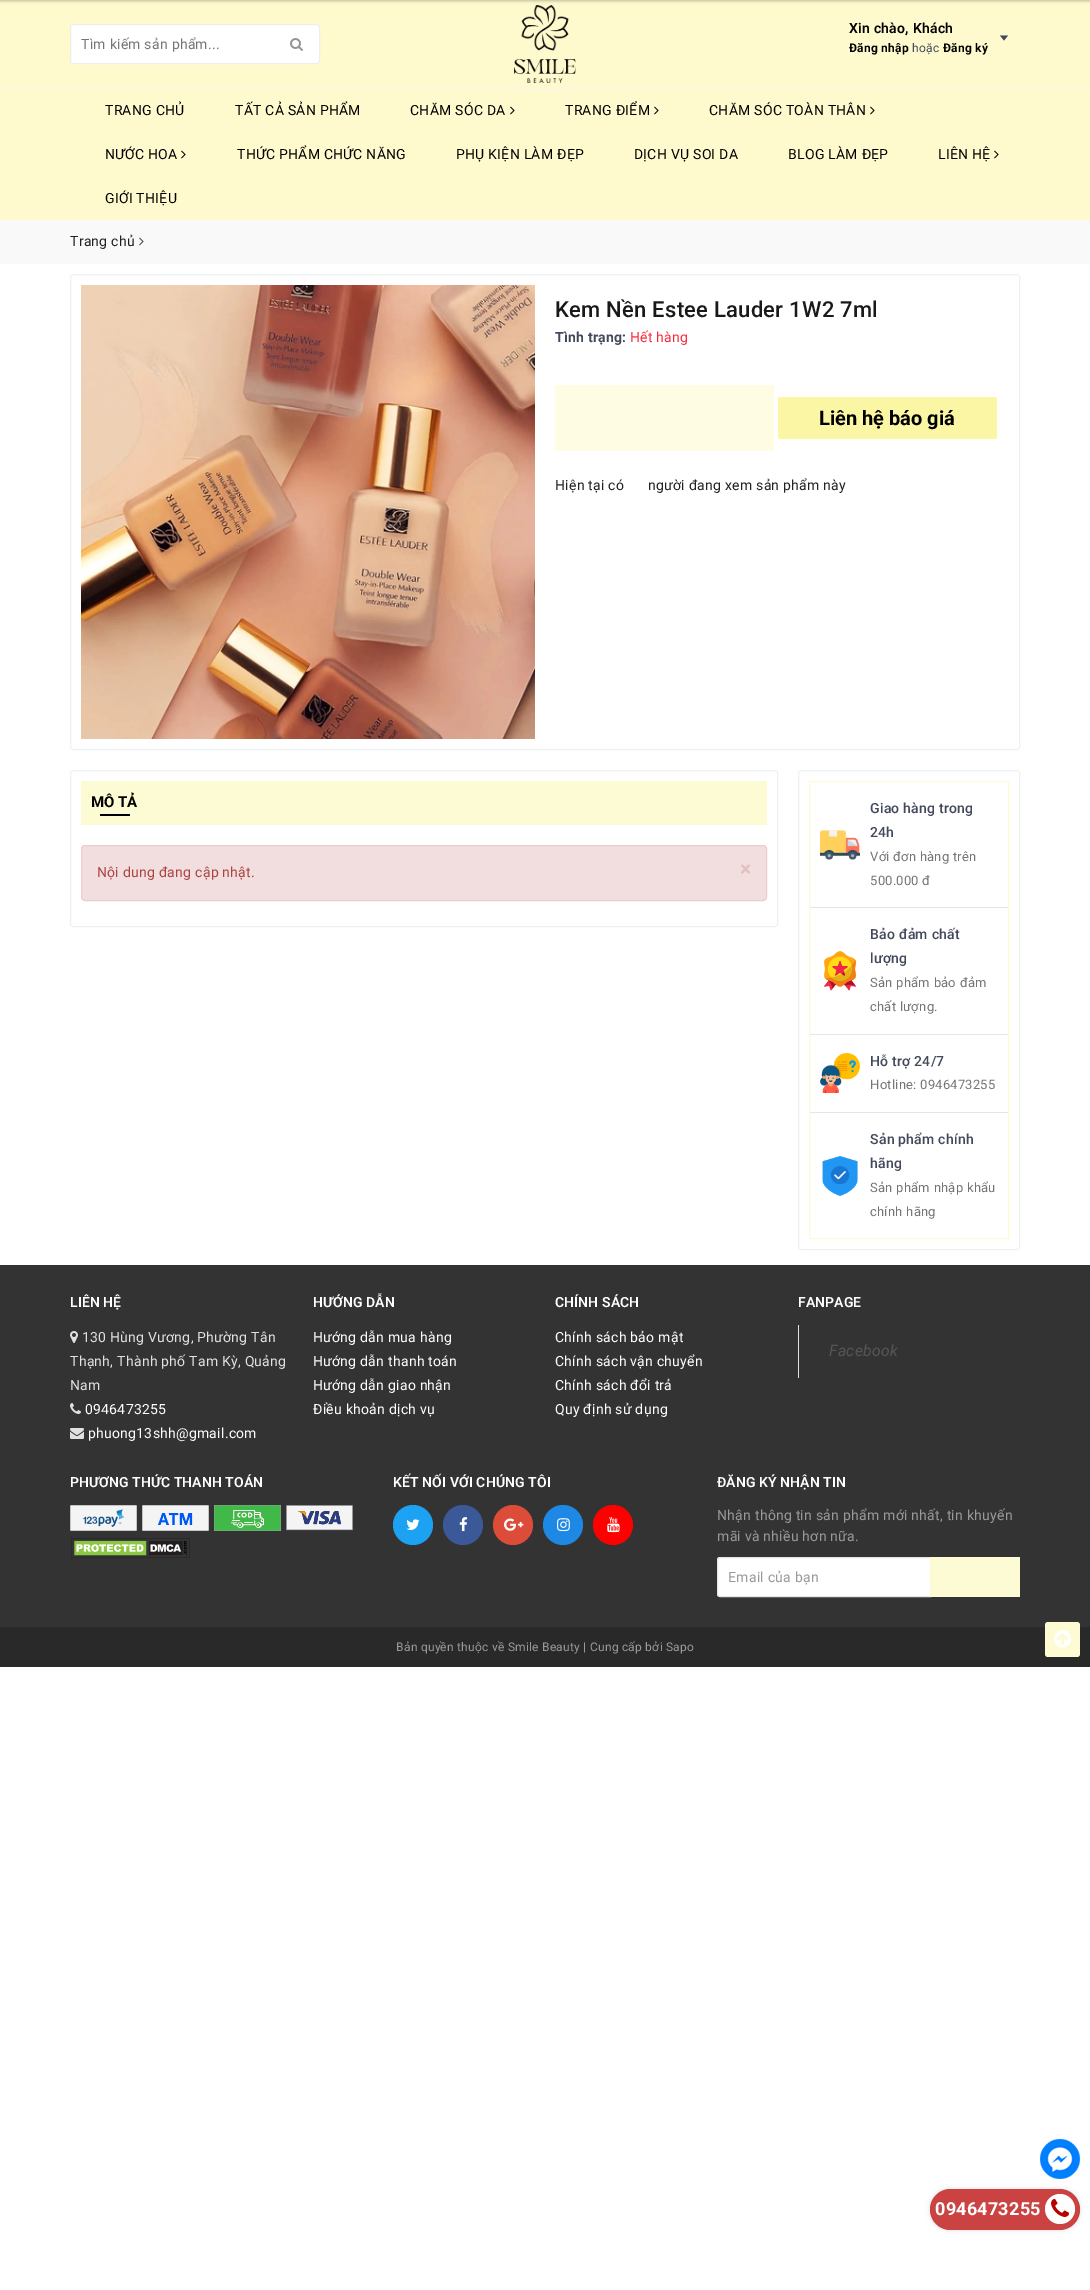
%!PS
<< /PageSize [1090 2290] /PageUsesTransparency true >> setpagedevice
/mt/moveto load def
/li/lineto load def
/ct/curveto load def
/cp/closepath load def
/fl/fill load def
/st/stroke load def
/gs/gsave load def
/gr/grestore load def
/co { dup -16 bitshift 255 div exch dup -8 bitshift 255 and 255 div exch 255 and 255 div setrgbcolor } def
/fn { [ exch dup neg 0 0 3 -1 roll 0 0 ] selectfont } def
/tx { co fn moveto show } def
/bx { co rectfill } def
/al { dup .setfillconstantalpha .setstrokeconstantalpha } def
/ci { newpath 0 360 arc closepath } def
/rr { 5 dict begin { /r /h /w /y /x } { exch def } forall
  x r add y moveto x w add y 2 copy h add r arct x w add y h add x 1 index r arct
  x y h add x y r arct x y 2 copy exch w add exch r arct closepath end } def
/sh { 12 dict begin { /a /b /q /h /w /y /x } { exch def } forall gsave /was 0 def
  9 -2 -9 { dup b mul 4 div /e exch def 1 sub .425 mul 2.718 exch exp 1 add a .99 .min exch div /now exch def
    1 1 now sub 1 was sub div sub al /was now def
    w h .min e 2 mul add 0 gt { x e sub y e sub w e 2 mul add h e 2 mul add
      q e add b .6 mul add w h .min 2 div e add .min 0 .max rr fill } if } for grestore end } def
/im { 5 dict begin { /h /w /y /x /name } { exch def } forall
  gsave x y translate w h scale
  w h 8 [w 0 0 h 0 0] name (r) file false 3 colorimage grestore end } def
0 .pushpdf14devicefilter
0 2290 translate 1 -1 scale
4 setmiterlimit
0 0 1090 2290 16#FFFFFF bx
0 0 1090 220 16#FFFACD bx
(media/2.raw) 514 5 62 78 im
16#000000 co
0 -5 1090 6 0 1.5 .25 sh
16#FFFFFF co
70.5 24.5 249 39 2.5 rr gs fl gr
16#EEEEEE co
st
(media/1.raw) 290 38 13 13 im
16#42495B co
1000 35.5 mt 1008 35.5 li 1004 40.5 li cp fl
0 88 1090 1 16#F7F7F7 bx
(media/3.raw) 510 106 5 9 im
(media/3.raw) 654 106 5 9 im
(media/3.raw) 870 106 5 9 im
(media/3.raw) 181 150 5 9 im
(media/3.raw) 994 150 5 9 im
0 220 1090 44 16#F9F9F9 bx
(media/4.raw) 139 237 5 9 im
16#ECF2F4 co
70.5 274.5 949 475 2.5 rr st
(media/5.raw) 81 285 454 454 im
16#FEFCE3 co
555 385 219 66 2 rr fl
16#FBF6A3 co
778 397 219 42 2 rr fl
16#ECF2F4 co
70.5 770.5 707 156 2.5 rr st
81 781 686 44 16#FDFBD4 bx
100 814 30 2 16#000000 bx
16#F2DEDE co
81.5 845.5 685 55 3.5 rr gs fl gr
16#EBCCD1 co
st
16#ECF2F4 co
798.5 770.5 221 479 2.5 rr st
16#FDFBD4 co
809.5 781.5 199 457 rectstroke
810 907 198 1 16#E5E5E5 bx
(media/6.raw) 820 830 40 30 im
810 1034 198 1 16#E5E5E5 bx
(media/7.raw) 823 951 34 40 im
810 1112 198 1 16#E5E5E5 bx
(media/8.raw) 820 1053 40 40 im
(media/9.raw) 822 1156 36 40 im
0 1265 1090 362 16#333333 bx
(media/10.raw) 70 1331 8 12 im
(media/11.raw) 70 1403 11 11 im
(media/12.raw) 70 1428 14 11 im
798 1325 1 53 16#E1E1E1 bx
(media/13.raw) 70 1505 67 26 im
(media/14.raw) 142 1505 67 26 im
(media/15.raw) 214 1505 67 26 im
(media/16.raw) 286 1505 67 26 im
(media/17.raw) 71 1538 119 20 im
16#1DA1F2 co
413 1525 20 ci fl
(media/18.raw) 406 1519 14 11 im
16#3B5998 co
463 1525 20 ci fl
(media/19.raw) 459 1517 9 15 im
16#DD4B39 co
513 1525 20 ci fl
(media/20.raw) 504 1518 20 13 im
16#1E88E5 co
563 1525 20 ci fl
(media/21.raw) 557 1518 13 14 im
16#FF0000 co
613 1525 20 ci fl
(media/22.raw) 607 1517 13 16 im
16#FFFFFF co
720 1557.5 mt 930.5 1557.5 li 930.5 1596.5 li 720 1596.5 li 718.5 1596.5 717.5 1595.5 717.5 1594 ct 717.5 1560 li 717.5 1558.5 718.5 1557.5 720 1557.5 ct cp gs fl gr
16#E5E5E5 co
st
930 1557 90 40 16#FDFBD4 bx
0 1627 1090 40 16#292929 bx
16#FDFBD4 co
1045 1622 35 35 3 rr fl
(media/23.raw) 1054 1630 18 18 im
(media/24.raw) 1040 2139 40 40 im
gs
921 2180 mt 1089 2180 li 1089 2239 li 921 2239 li cp 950.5 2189 mt 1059.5 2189 li 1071 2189 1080 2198 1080 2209.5 ct 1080 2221 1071 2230 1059.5 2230 ct 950.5 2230 li 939 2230 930 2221 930 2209.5 ct 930 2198 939 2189 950.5 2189 ct cp eoclip newpath
16#DDDDDD co
930 2189 150 41 20.5 2.5 1 sh
gr
0.74 al
16#B70100 co
930 2189 150 41 20.5 rr fl
1 al
16#FFFFFF co
1060 2209 15 ci fl
(media/25.raw) 1051 2198 19 19 im
/Roboto-Regular 14 fn
16#757575 co
81 49 mt .25 0 (Tìm kiếm sản phẩm...) ashow
/Roboto-SemiBold 14 fn
16#000000 co
849 33 mt .25 0 (Xin chào, Khách) ashow
/Roboto-Bold 12 fn
849 52 mt .25 0 (Đăng nhập) ashow
/Roboto-Regular 12 fn
16#42495B co
912 52 mt .25 0 (hoặc) ashow
/Roboto-Bold 12 fn
16#000000 co
943 52 mt .25 0 (Đăng ký) ashow
/Roboto-Regular 14 fn
105 115 mt .25 0 (TRANG CHỦ) ashow
235 115 mt .25 0 (TẤT CẢ SẢN PHẨM) ashow
410 115 mt .25 0 (CHĂM SÓC DA) ashow
565 115 mt .25 0 (TRANG ĐIỂM) ashow
709 115 mt .25 0 (CHĂM SÓC TOÀN THÂN) ashow
105 159 mt .25 0 (NƯỚC HOA) ashow
237 159 mt .25 0 (THỨC PHẨM CHỨC NĂNG) ashow
456 159 mt .25 0 (PHỤ KIỆN LÀM ĐẸP) ashow
634 159 mt .25 0 (DỊCH VỤ SOI DA) ashow
788 159 mt .25 0 (BLOG LÀM ĐẸP) ashow
938 159 mt .25 0 (LIÊN HỆ) ashow
105 203 mt .25 0 (GIỚI THIỆU) ashow
16#222222 co
70 246 mt .25 0 (Trang chủ) ashow
/Roboto-Medium 22 fn
16#191919 co
555 317 mt .25 0 (Kem Nền Estee Lauder 1W2 7ml) ashow
/Roboto-Bold 14 fn
16#42495B co
555 342 mt .25 0 (Tình trạng:) ashow
/Roboto-Regular 14 fn
16#F62D3E co
630 342 mt .25 0 (Hết hàng) ashow
(Liên hệ báo giá) 819 425 /Roboto-Bold 20 16#000000 tx
/Roboto-Regular 14 fn
16#222222 co
555 490 mt .25 0 (Hiện tại có) ashow
648 490 mt .25 0 (người đang xem sản phẩm này) ashow
(MÔ TẢ) 91 807 /Roboto-Bold 15 16#000000 tx
/Roboto-Regular 14 fn
16#A94442 co
97 877 mt .25 0 (Nội dung đang cập nhật.) ashow
/Roboto-Bold 21 fn
16#E3BFBF co
740 876 mt .25 0 (×) ashow
/Roboto-Medium 14 fn
16#42495B co
870 813 mt .25 0 (Giao hàng trong) ashow
870 837 mt .25 0 (24h) ashow
/Roboto-Regular 13 fn
16#757575 co
870 861 mt .25 0 (Với đơn hàng trên) ashow
870 885 mt .25 0 (500.000 đ) ashow
/Roboto-Medium 14 fn
16#42495B co
870 939 mt .25 0 (Bảo đảm chất) ashow
870 963 mt .25 0 (lượng) ashow
/Roboto-Regular 13 fn
16#757575 co
870 987 mt .25 0 (Sản phẩm bảo đảm) ashow
870 1011 mt .25 0 (chất lượng.) ashow
/Roboto-Medium 14 fn
16#42495B co
870 1066 mt .25 0 (Hỗ trợ 24/7) ashow
/Roboto-Regular 13 fn
16#757575 co
870 1089 mt .25 0 (Hotline: 0946473255) ashow
/Roboto-Medium 14 fn
16#42495B co
870 1144 mt .25 0 (Sản phẩm chính) ashow
870 1168 mt .25 0 (hãng) ashow
/Roboto-Regular 13 fn
16#757575 co
870 1192 mt .25 0 (Sản phẩm nhập khẩu) ashow
870 1216 mt .25 0 (chính hãng) ashow
/Roboto-SemiBold 14 fn
16#FFFFFF co
70 1307 mt .1 0 (LIÊN HỆ) ashow
/Roboto-Regular 14 fn
16#E1E1E1 co
82 1342 mt .25 0 (130 Hùng Vương, Phường Tân) ashow
70 1366 mt .25 0 (Thạnh, Thành phố Tam Kỳ, Quảng) ashow
70 1390 mt .25 0 (Nam) ashow
16#FFFFFF co
85 1414 mt .25 0 (0946473255) ashow
88 1438 mt .25 0 (phuong13shh@gmail.com) ashow
/Roboto-SemiBold 14 fn
313 1307 mt .1 0 (HƯỚNG DẪN) ashow
/Roboto-Regular 14 fn
313 1342 mt .25 0 (Hướng dẫn mua hàng) ashow
313 1366 mt .25 0 (Hướng dẫn thanh toán) ashow
313 1390 mt .25 0 (Hướng dẫn giao nhận) ashow
313 1414 mt .25 0 (Điều khoản dịch vụ) ashow
/Roboto-SemiBold 14 fn
555 1307 mt .1 0 (CHÍNH SÁCH) ashow
/Roboto-Regular 14 fn
555 1342 mt .25 0 (Chính sách bảo mật) ashow
555 1366 mt .25 0 (Chính sách vận chuyển) ashow
555 1390 mt .25 0 (Chính sách đổi trả) ashow
555 1414 mt .25 0 (Quy định sử dụng) ashow
/Roboto-SemiBold 14 fn
798 1307 mt .1 0 (FANPAGE) ashow
/Roboto-Italic 15.75 fn
16#575454 co
829 1356 mt .25 0 (Facebook) ashow
/Roboto-SemiBold 14 fn
16#FFFFFF co
70 1487 mt .1 0 (PHƯƠNG THỨC THANH TOÁN) ashow
393 1487 mt .1 0 (KẾT NỐI VỚI CHÚNG TÔI) ashow
717 1487 mt .1 0 (ĐĂNG KÝ NHẬN TIN) ashow
/Roboto-Regular 14 fn
16#999999 co
717 1520 mt .25 0 (Nhận thông tin sản phẩm mới nhất, tin khuyến) ashow
717 1541 mt .25 0 (mãi và nhiều hơn nữa.) ashow
728 1582 mt .25 0 (Email của bạn) ashow
/Roboto-Regular 12 fn
396 1651 mt .25 0 (Bản quyền thuộc về Smile Beauty | Cung cấp bởi Sapo) ashow
/Roboto-Bold 18 fn
16#FFFFFF co
935 2215 mt .25 0 (0946473255) ashow
.poppdf14devicefilter showpage
